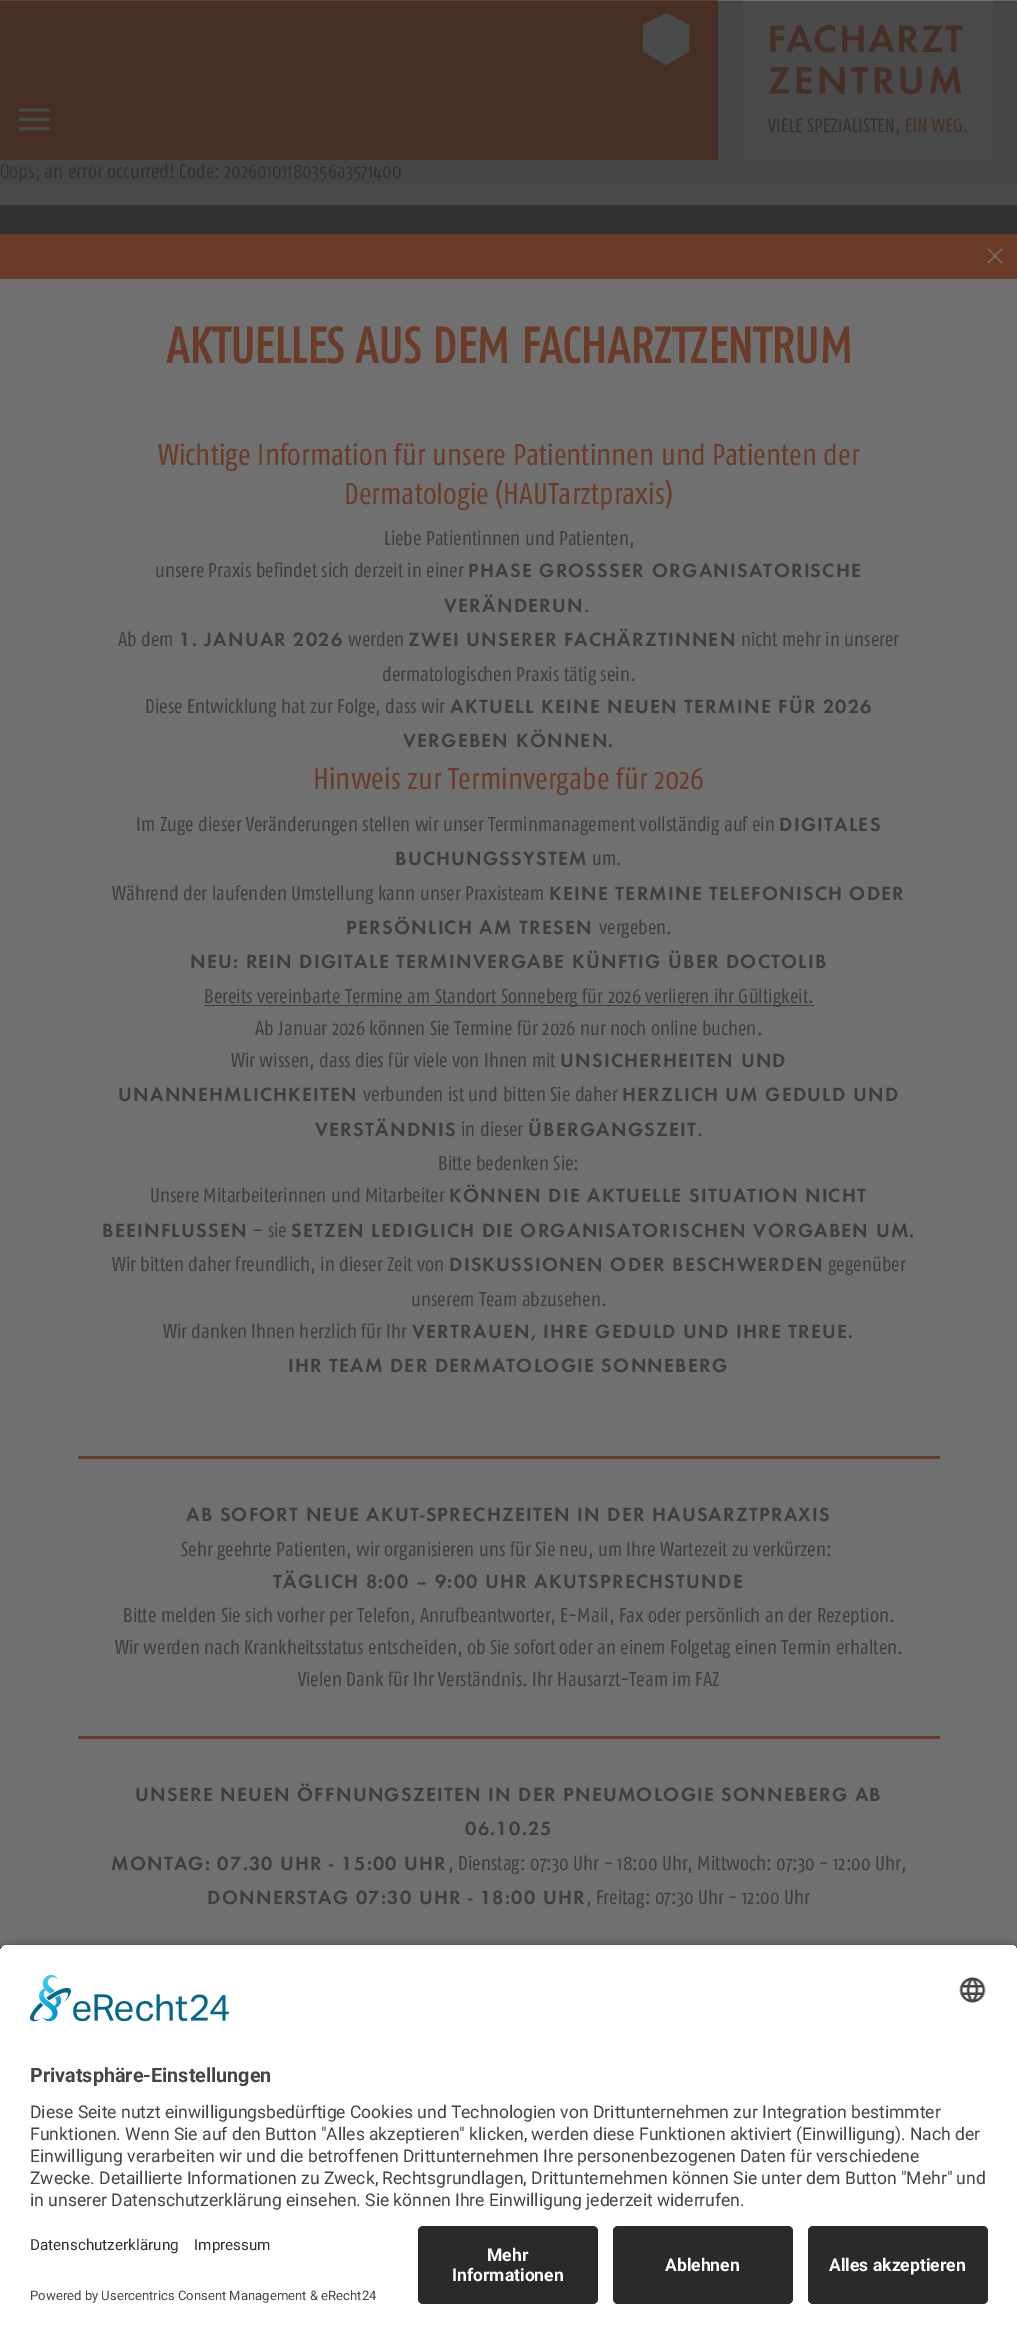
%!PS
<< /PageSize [1017 2333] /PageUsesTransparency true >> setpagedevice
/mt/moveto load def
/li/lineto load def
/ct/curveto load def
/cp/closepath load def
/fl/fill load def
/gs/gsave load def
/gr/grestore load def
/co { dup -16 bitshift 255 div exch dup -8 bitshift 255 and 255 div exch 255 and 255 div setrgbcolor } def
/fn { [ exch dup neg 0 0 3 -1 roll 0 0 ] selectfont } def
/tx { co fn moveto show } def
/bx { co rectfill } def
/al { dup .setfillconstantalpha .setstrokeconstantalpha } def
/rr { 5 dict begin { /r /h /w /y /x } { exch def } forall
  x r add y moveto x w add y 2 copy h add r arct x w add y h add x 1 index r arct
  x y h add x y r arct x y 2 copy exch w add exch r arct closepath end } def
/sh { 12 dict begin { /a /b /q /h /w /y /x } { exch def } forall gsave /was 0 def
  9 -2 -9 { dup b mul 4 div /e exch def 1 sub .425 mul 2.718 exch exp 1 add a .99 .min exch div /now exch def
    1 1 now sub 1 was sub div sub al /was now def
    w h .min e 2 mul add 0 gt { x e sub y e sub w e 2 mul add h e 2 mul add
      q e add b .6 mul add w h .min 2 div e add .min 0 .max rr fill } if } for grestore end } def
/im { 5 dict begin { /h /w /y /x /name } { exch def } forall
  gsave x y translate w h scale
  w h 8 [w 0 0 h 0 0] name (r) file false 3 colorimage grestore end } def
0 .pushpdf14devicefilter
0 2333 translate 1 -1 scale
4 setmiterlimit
0 0 1017 2333 16#464646 bx
0 0 718 1 16#693B28 bx
0 1 718 159 16#472F26 bx
(media/1.raw) 19 108 31 23 im
743 0 250 1 16#707070 bx
743 1 250 159 16#4A4A4A bx
993 0 24 1 16#686868 bx
718 0 25 1 16#686868 bx
16#4A4A4A co
644 52 mt 642 51 643 44 643 43 ct 643 30 li 643 25 642 26 647 23 ct 666 13 li 689 25 li 690 26 689 33 689 35 ct 689 47 li 689 53 690 51 685 54 ct 666 65 li cp fl
(media/2.raw) 768 25 200 110 im
0 184 1017 21 16#4A4A4A bx
0 205 1017 29 16#313131 bx
16#323232 co
5 239 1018 1867 0 4 1 sh
0 234 1017 45 16#693B28 bx
0 279 1017 1675 16#707070 bx
987.5 249 mt 988.5 248.5 li 1002.5 262.5 li 1001.5 263.5 li cp fl
(media/3.raw) 994 255 2 2 im
1001.5 248.5 mt 1002.5 249 li 988.5 263.5 li 987.5 262.5 li cp fl
204 1005 610 1 16#3E3E3E bx
78 1456 862 3 16#693B28 bx
78 1736 862 3 16#693B28 bx
16#000000 co
0 1948 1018 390 10 4.5 .8 sh
gs
10 1944 mt 1008 1944 li 1013.5 1944 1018 1948.5 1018 1954 ct 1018 2216 li 0 2216 li 0 1954 li 0 1948.5 4.5 1944 10 1944 ct cp clip newpath
0 1945 1017 271 16#FFFFFF bx
gr
(media/4.raw) 30 1975 199 47 im
(media/5.raw) 959 1977 27 26 im
0 2216 1017 117 16#FFFFFF bx
16#292A2B co
418 2226 180 78 5 rr fl
613 2226 180 78 5 rr fl
808 2226 180 78 5 rr fl
(Oops, an error occurred! Code: 20260101180356a3571400) 0 178 /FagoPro-Regular 20 16#313131 tx
(AKTUELLES AUS DEM FACHARZTZENTRUM) 166 363 /FagoPro-Bold 50 16#693B28 tx
(Wichtige Information für unsere Patientinnen und Patienten der) 158 465 /FagoPro-Regular 30 16#693B28 tx
(Dermatologie \(HAUTarztpraxis\)) 344 504 /FagoPro-Regular 30 16#693B28 tx
(Liebe Patientinnen und Patienten,) 384 545 /FagoPro-Regular 20 16#3E3E3E tx
(unsere Praxis befindet sich derzeit in einer) 155 577 /FagoPro-Regular 20 16#3E3E3E tx
/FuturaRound-SemiBold 20 fn
468 577 mt 1.25 0 (PHASE GROSS) ashow
609 577 mt 1 0 32 1.25 0 (SER ORGANISATORISCHE) awidthshow
444 612 mt 1.25 0 (VERÄNDERUN) ashow
(.) 584 612 /FagoPro-Regular 20 16#3E3E3E tx
(Ab dem) 118 646 /FagoPro-Regular 20 16#3E3E3E tx
/FuturaRound-SemiBold 20 fn
179 646 mt 1.25 0 (1. JANUAR 2026) ashow
(werden) 348 646 /FagoPro-Regular 20 16#3E3E3E tx
/FuturaRound-SemiBold 20 fn
408 646 mt 1.25 0 (ZWEI UNSERER FACHÄRZTINNEN) ashow
(nicht mehr in unserer) 741 646 /FagoPro-Regular 20 16#3E3E3E tx
(dermatologischen Praxis tätig sein.) 382 681 /FagoPro-Regular 20 16#3E3E3E tx
(Diese Entwicklung hat zur Folge, dass wir) 145 713 /FagoPro-Regular 20 16#3E3E3E tx
/FuturaRound-SemiBold 20 fn
450 713 mt 1.25 0 (AKTUELL KEINE NEUEN TERMINE FÜR 2026) ashow
403 747 mt 1.25 0 (VERGEBEN KÖNNEN.) ashow
(Hinweis zur Terminvergabe für 2026) 313 789 /FagoPro-Regular 30 16#693B28 tx
(Im Zuge dieser Veränderungen stellen wir unser Terminmanagement vollständig auf ein) 136 831 /FagoPro-Regular 20 16#3E3E3E tx
/FuturaRound-SemiBold 20 fn
779 831 mt 1.25 0 (DIGITALES) ashow
395 865 mt 1.25 0 (BUCHUNGSSYSTEM) ashow
(um.) 592 865 /FagoPro-Regular 20 16#3E3E3E tx
(Während der laufenden Umstellung kann unser Praxisteam) 112 900 /FagoPro-Regular 20 16#3E3E3E tx
/FuturaRound-SemiBold 20 fn
549 900 mt 1.25 0 (KEINE TERMINE TELEFONISCH ODER) ashow
346 934 mt 1.25 0 (PERSÖNLICH AM TRESEN) ashow
(vergeben.) 599 934 /FagoPro-Regular 20 16#3E3E3E tx
/FuturaRound-SemiBold 20 fn
190 968 mt 1.25 0 (NEU: REIN DIGITALE TERMINVERGABE KÜNFTIG ÜBER DOCTOLIB) ashow
(Bereits vereinbarte Termine am Standort Sonneberg für 2026 verlieren ihr Gültigkeit.) 204 1003 /FagoPro-Regular 20 16#3E3E3E tx
(Ab Januar 2026 können Sie Termine für 2026 nur noch online buchen.) 255 1035 /FagoPro-Regular 20 16#3E3E3E tx
(Wir wissen, dass dies für viele von Ihnen mit) 231 1067 /FagoPro-Regular 20 16#3E3E3E tx
/FuturaRound-SemiBold 20 fn
560 1067 mt 1.25 0 (UNSICHERHEITEN UND) ashow
118 1101 mt 1.25 0 (UNANNEHMLICHKEITEN) ashow
(verbunden ist und bitten Sie daher) 363 1101 /FagoPro-Regular 20 16#3E3E3E tx
/FuturaRound-SemiBold 20 fn
622 1101 mt 1.25 0 (HERZLICH UM GEDULD UND) ashow
315 1136 mt 1.25 0 (VERSTÄNDNIS) ashow
(in dieser) 461 1136 /FagoPro-Regular 20 16#3E3E3E tx
/FuturaRound-SemiBold 20 fn
528 1136 mt 1.25 0 (ÜBERGANGSZEIT) ashow
(.) 697 1136 /FagoPro-Regular 20 16#3E3E3E tx
(Bitte bedenken Sie:) 438 1170 /FagoPro-Regular 20 16#3E3E3E tx
(Unsere Mitarbeiterinnen und Mitarbeiter) 150 1202 /FagoPro-Regular 20 16#3E3E3E tx
/FuturaRound-SemiBold 20 fn
449 1202 mt 1.25 0 (KÖNNEN DIE AKTUELLE SITUATION NICHT) ashow
102 1237 mt 1.25 0 (BEEINFLUSSEN) ashow
(– sie) 252 1237 /FagoPro-Regular 20 16#3E3E3E tx
/FuturaRound-SemiBold 20 fn
291 1237 mt 1.25 0 (SETZEN LEDIGLICH DIE ORGANISATORISCHEN VORGABEN UM.) ashow
(Wir bitten daher freundlich, in dieser Zeit von) 112 1271 /FagoPro-Regular 20 16#3E3E3E tx
/FuturaRound-SemiBold 20 fn
449 1271 mt 1.25 0 (DISKUSSIONEN ODER BESCHWERDEN) ashow
(gegenüber) 828 1271 /FagoPro-Regular 20 16#3E3E3E tx
(unserem Team abzusehen.) 411 1306 /FagoPro-Regular 20 16#3E3E3E tx
(Wir danken Ihnen herzlich für Ihr) 163 1338 /FagoPro-Regular 20 16#3E3E3E tx
/FuturaRound-SemiBold 20 fn
412 1338 mt 1.25 0 (VERTRAUEN, IHRE GEDULD UND IHRE TREUE.) ashow
288 1372 mt 1.25 0 (IHR TEAM DER DERMATOLOGIE SONNEBERG) ashow
186 1521 mt 1.25 0 (AB SOFORT NEUE AKUT-SPRECHZEITEN IN DER HAUSARZTPRAXIS) ashow
(Sehr geehrte Patienten, wir organisieren uns für Sie neu, um Ihre Wartezeit zu verkürzen:) 181 1556 /FagoPro-Regular 20 16#3E3E3E tx
/FuturaRound-SemiBold 20 fn
273 1588 mt 1.25 0 (TÄGLICH 8:00 – 9:00 UHR AKUTSPRECHSTUNDE) ashow
(Bitte melden Sie sich vorher per Telefon, Anrufbeantworter, E-Mail, Fax oder persönlich an der Rezeption.) 123 1622 /FagoPro-Regular 20 16#3E3E3E tx
(Wir werden nach Krankheitsstatus entscheiden, ob Sie sofort oder an einem Folgetag einen Termin erhalten.) 115 1654 /FagoPro-Regular 20 16#3E3E3E tx
(Vielen Dank für Ihr Verständnis. Ihr Hausarzt-Team im FAZ) 298 1686 /FagoPro-Regular 20 16#3E3E3E tx
/FuturaRound-SemiBold 20 fn
135 1801 mt 1.25 0 (UNSERE NEUEN ÖFFNUNGSZEITEN IN DER PNEUMOLOGIE SONNEBERG AB) ashow
465 1835 mt 1.25 0 (06.10.25) ashow
111 1870 mt 1.25 0 (MONTAG: 07.30 UHR - 15:00 UHR) ashow
(, Dienstag: 07:30 Uhr - 18:00 Uhr, Mittwoch: 07:30 - 12:00 Uhr,) 448 1870 /FagoPro-Regular 20 16#3E3E3E tx
/FuturaRound-SemiBold 20 fn
207 1904 mt 1.25 0 (DONNERSTAG 07:30 UHR - 18:00 UHR) ashow
(, Freitag: 07:30 Uhr - 12:00 Uhr) 586 1904 /FagoPro-Regular 20 16#3E3E3E tx
(Privatsphäre-Einstellungen) 30 2082 /Roboto-Bold 19.75 16#444444 tx
(Diese Seite nutzt einwilligungsbedürftige Cookies und Technologien von Drittunternehmen zur Integration bestimmter) 30 2118 /Roboto-Regular 17.5 16#444444 tx
(Funktionen. Wenn Sie auf den Button "Alles akzeptieren" klicken, werden diese Funktionen aktiviert \(Einwilligung\). Nach der) 30 2140 /Roboto-Regular 17.5 16#444444 tx
(Einwilligung verarbeiten wir und die betroffenen Drittunternehmen Ihre personenbezogenen Daten für verschiedene) 30 2162 /Roboto-Regular 17.5 16#444444 tx
(Zwecke. Detaillierte Informationen zu Zweck, Rechtsgrundlagen, Drittunternehmen können Sie unter dem Button "Mehr" und) 30 2184 /Roboto-Regular 17.5 16#444444 tx
(in unserer Datenschutzerklärung einsehen. Sie können Ihre Einwilligung jederzeit widerrufen.) 30 2206 /Roboto-Regular 17.5 16#444444 tx
(Datenschutzerklärung) 30 2250 /Roboto-Regular 15.25 16#313131 tx
(Impressum) 194 2250 /Roboto-Regular 15.25 16#313131 tx
(Powered by Usercentrics Consent Management & eRecht24) 30 2300 /Roboto-Regular 13.1 16#444444 tx
(Mehr) 487 2261 /Roboto-Bold 17.5 16#FFFFFF tx
(Informationen) 452 2281 /Roboto-Bold 17.5 16#FFFFFF tx
(Ablehnen) 665 2271 /Roboto-Bold 17.5 16#FFFFFF tx
(Alles akzeptieren) 829 2271 /Roboto-Bold 17.5 16#FFFFFF tx
.poppdf14devicefilter showpage
